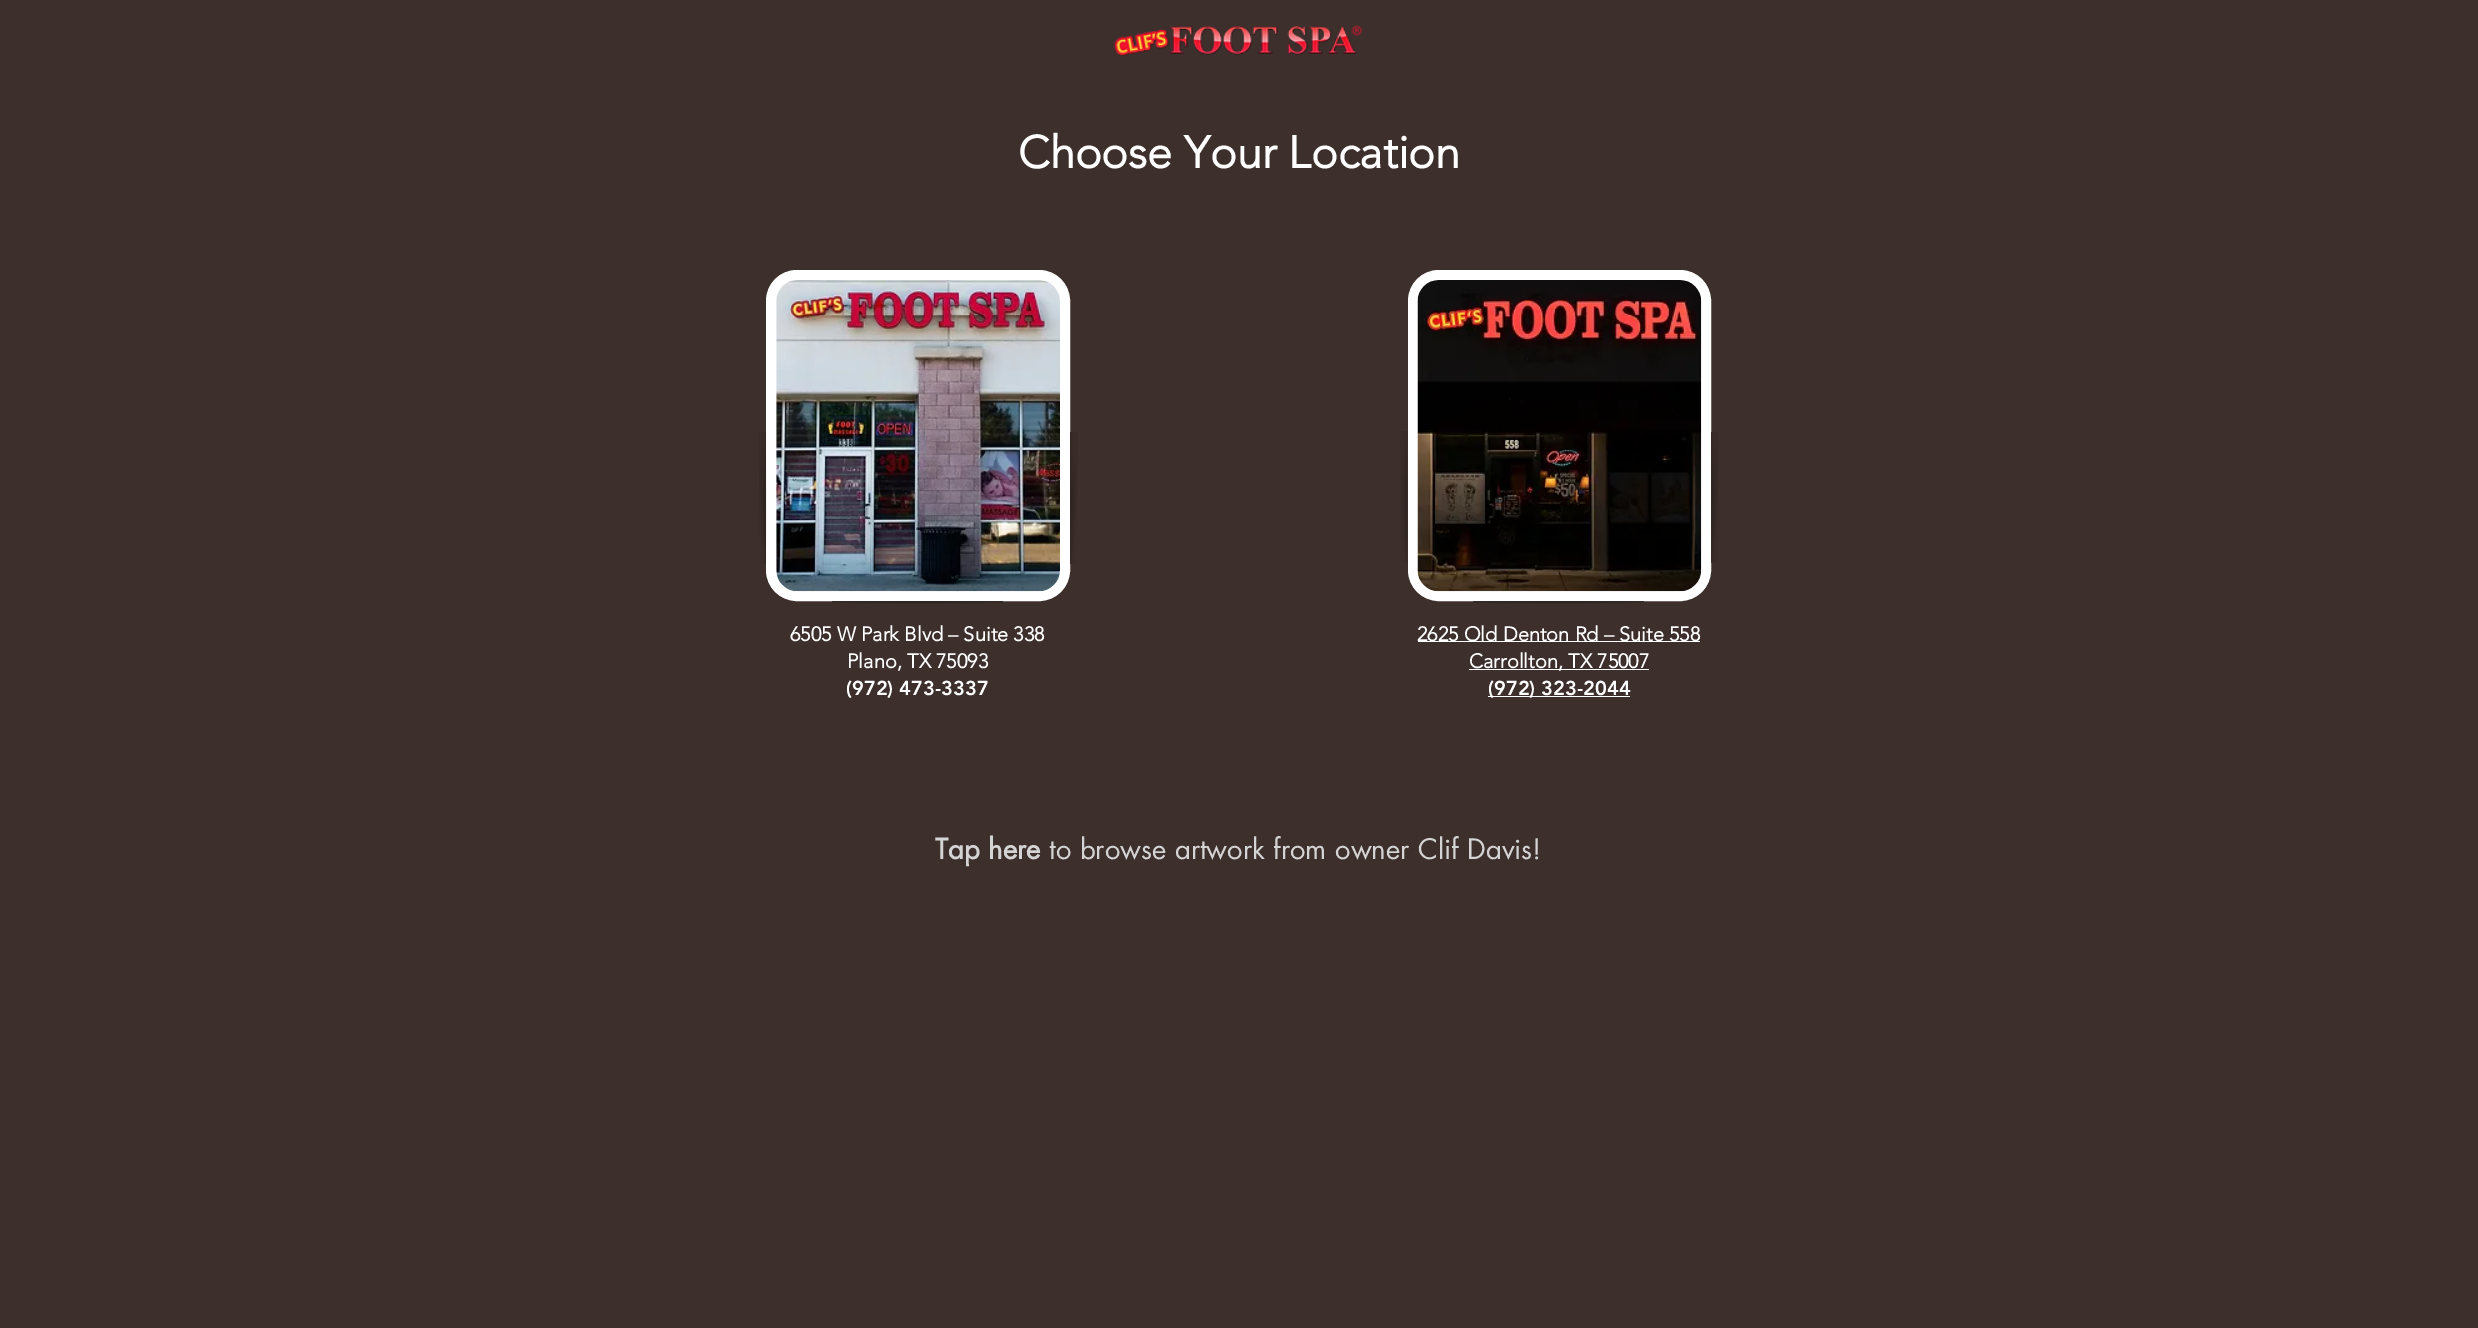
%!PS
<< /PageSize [2478 1328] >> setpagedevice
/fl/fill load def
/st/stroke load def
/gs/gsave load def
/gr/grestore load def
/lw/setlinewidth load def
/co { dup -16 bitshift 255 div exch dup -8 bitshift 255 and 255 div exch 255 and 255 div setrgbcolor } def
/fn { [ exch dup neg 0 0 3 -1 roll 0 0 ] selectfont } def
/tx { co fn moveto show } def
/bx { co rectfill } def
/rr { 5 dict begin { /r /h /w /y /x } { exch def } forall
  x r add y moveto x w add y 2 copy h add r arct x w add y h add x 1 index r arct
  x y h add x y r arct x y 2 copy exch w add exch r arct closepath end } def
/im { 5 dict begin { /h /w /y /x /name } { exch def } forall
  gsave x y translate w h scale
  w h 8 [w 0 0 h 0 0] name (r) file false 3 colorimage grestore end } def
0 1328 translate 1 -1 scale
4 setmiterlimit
0 0 2478 1328 16#3D2F2C bx
(media/1.raw) 1113 25 250 31 im
16#FFFFFF co
771 275 294 321 26 rr gs fl gr
10 lw
st
(media/2.raw) 759 432 8 132 im
(media/3.raw) 776 280 284 312 im
(media/4.raw) 832 601 171 3 im
(media/5.raw) 1070 432 8 132 im
(media/6.raw) 1400 431 8 132 im
1413 275 293 321 26 rr st
(media/7.raw) 1417 280 285 312 im
(media/8.raw) 1473 601 171 3 im
(media/9.raw) 1711 432 8 131 im
1418 641 282 1 16#FFFFFF bx
1469 669 180 1 16#FFFFFF bx
1488 696 142 1 16#FFFFFF bx
(Choose Your Location) 1018 168 /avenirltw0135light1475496-Bold 45 16#FFFFFF tx
(6505 W Park Blvd – Suite 338) 790 641 /avenirltw0135light1475496-Bold 20 16#FFFFFF tx
(Plano, TX 75093) 847 668 /avenirltw0135light1475496-Bold 20 16#FFFFFF tx
(\(972\) 473-3337) 846 695 /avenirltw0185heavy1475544-Black 20 16#FFFFFF tx
(2625 Old Denton Rd – Suite 558) 1417 641 /avenirltw0135light1475496-Bold 20 16#FFFFFF tx
(Carrollton, TX 75007) 1469 668 /avenirltw0135light1475496-Bold 20 16#FFFFFF tx
(\(972\) 323-2044) 1488 695 /avenirltw0185heavy1475544-Black 20 16#FFFFFF tx
(Tap here) 935 859 /futura-Bold 27.5 16#D4D4D4 tx
(to browse artwork from owner Clif Davis!) 1049 859 /futura-Regular 27.5 16#D4D4D4 tx
showpage
